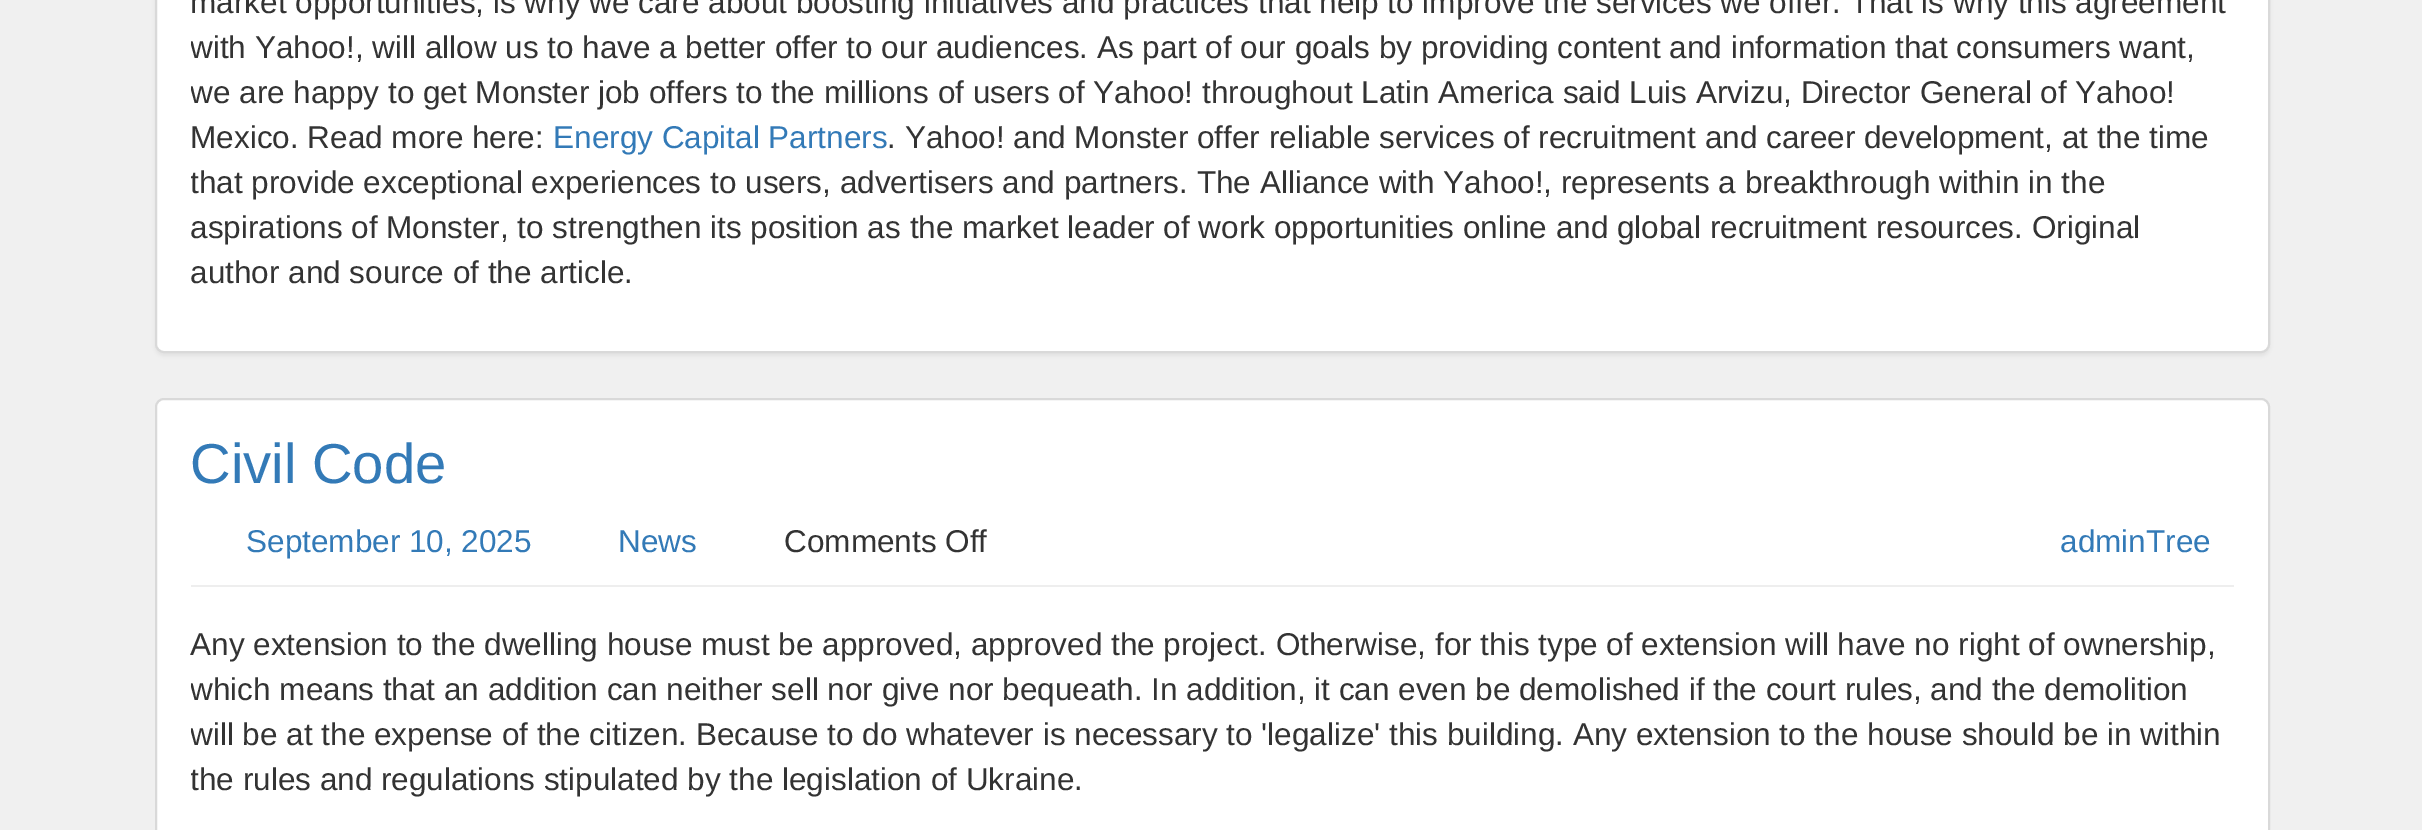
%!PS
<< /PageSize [2422 830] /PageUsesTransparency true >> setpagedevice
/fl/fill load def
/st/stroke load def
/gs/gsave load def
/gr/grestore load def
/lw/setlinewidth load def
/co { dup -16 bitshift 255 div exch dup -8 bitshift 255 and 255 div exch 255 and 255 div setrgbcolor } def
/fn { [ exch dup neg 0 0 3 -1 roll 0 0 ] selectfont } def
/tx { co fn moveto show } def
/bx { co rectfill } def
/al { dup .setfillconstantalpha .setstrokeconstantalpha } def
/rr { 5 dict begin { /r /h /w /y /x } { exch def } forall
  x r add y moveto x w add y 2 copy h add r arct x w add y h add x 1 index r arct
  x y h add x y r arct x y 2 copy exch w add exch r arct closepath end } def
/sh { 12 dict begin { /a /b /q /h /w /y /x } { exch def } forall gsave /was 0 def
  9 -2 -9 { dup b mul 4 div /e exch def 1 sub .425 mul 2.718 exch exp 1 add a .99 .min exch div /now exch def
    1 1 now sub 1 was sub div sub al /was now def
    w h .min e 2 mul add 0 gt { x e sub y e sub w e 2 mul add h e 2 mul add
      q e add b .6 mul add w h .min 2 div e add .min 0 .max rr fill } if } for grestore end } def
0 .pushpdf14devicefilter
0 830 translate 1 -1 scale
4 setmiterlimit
0 0 2422 830 16#F0F0F0 bx
16#000000 co
155 -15 2115 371 9 2 .05 sh
16#FFFFFF co
156 -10 2113 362 8 rr gs fl gr
16#D9D9D9 co
2 lw
st
16#FFFFFF co
156 399 2113 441 8 rr gs fl gr
16#D9D9D9 co
st
191 585 2043 2 16#EEEEEE bx
(market opportunities, is why we care about boosting initiatives and practices that help to improve the services we offer. That is why this agreement) 190 13 /LiberationSans-Regular 31.5 16#333333 tx
gs
191 0 2043 317 rectclip
(with Yahoo!, will allow us to have a better offer to our audiences. As part of our goals by providing content and information that consumers want,) 190 58 /LiberationSans-Regular 31.5 16#333333 tx
(we are happy to get Monster job offers to the millions of users of Yahoo! throughout Latin America said Luis Arvizu, Director General of Yahoo!) 190 103 /LiberationSans-Regular 31.5 16#333333 tx
gr
(Mexico. Read more here:) 190 148 /LiberationSans-Regular 31.5 16#333333 tx
(Energy Capital Partners) 553 148 /LiberationSans-Regular 31.5 16#337AB7 tx
(. Yahoo! and Monster offer reliable services of recruitment and career development, at the time) 887 148 /LiberationSans-Regular 31.5 16#333333 tx
gs
191 0 2043 317 rectclip
(that provide exceptional experiences to users, advertisers and partners. The Alliance with Yahoo!, represents a breakthrough within in the) 190 193 /LiberationSans-Regular 31.5 16#333333 tx
gr
(aspirations of Monster, to strengthen its position as the market leader of work opportunities online and global recruitment resources. Original) 190 238 /LiberationSans-Regular 31.5 16#333333 tx
(author and source of the article.) 190 283 /LiberationSans-Regular 31.5 16#333333 tx
(Civil Code) 190 483 /LiberationSans-Regular 56.25 16#337AB7 tx
(September 10, 2025) 246 552 /LiberationSans-Regular 31.5 16#337AB7 tx
(News) 618 552 /LiberationSans-Regular 31.5 16#337AB7 tx
(Comments Off) 784 552 /LiberationSans-Regular 31.5 16#333333 tx
(adminTree) 2060 552 /LiberationSans-Regular 31.5 16#337AB7 tx
(Any extension to the dwelling house must be approved, approved the project. Otherwise, for this type of extension will have no right of ownership,) 190 655 /LiberationSans-Regular 31.5 16#333333 tx
gs
191 434 2043 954 rectclip
(which means that an addition can neither sell nor give nor bequeath. In addition, it can even be demolished if the court rules, and the demolition) 190 700 /LiberationSans-Regular 31.5 16#333333 tx
(will be at the expense of the citizen. Because to do whatever is necessary to 'legalize' this building. Any extension to the house should be in within) 190 745 /LiberationSans-Regular 31.5 16#333333 tx
(the rules and regulations stipulated by the legislation of Ukraine.) 190 790 /LiberationSans-Regular 31.5 16#333333 tx
gr
.poppdf14devicefilter showpage
